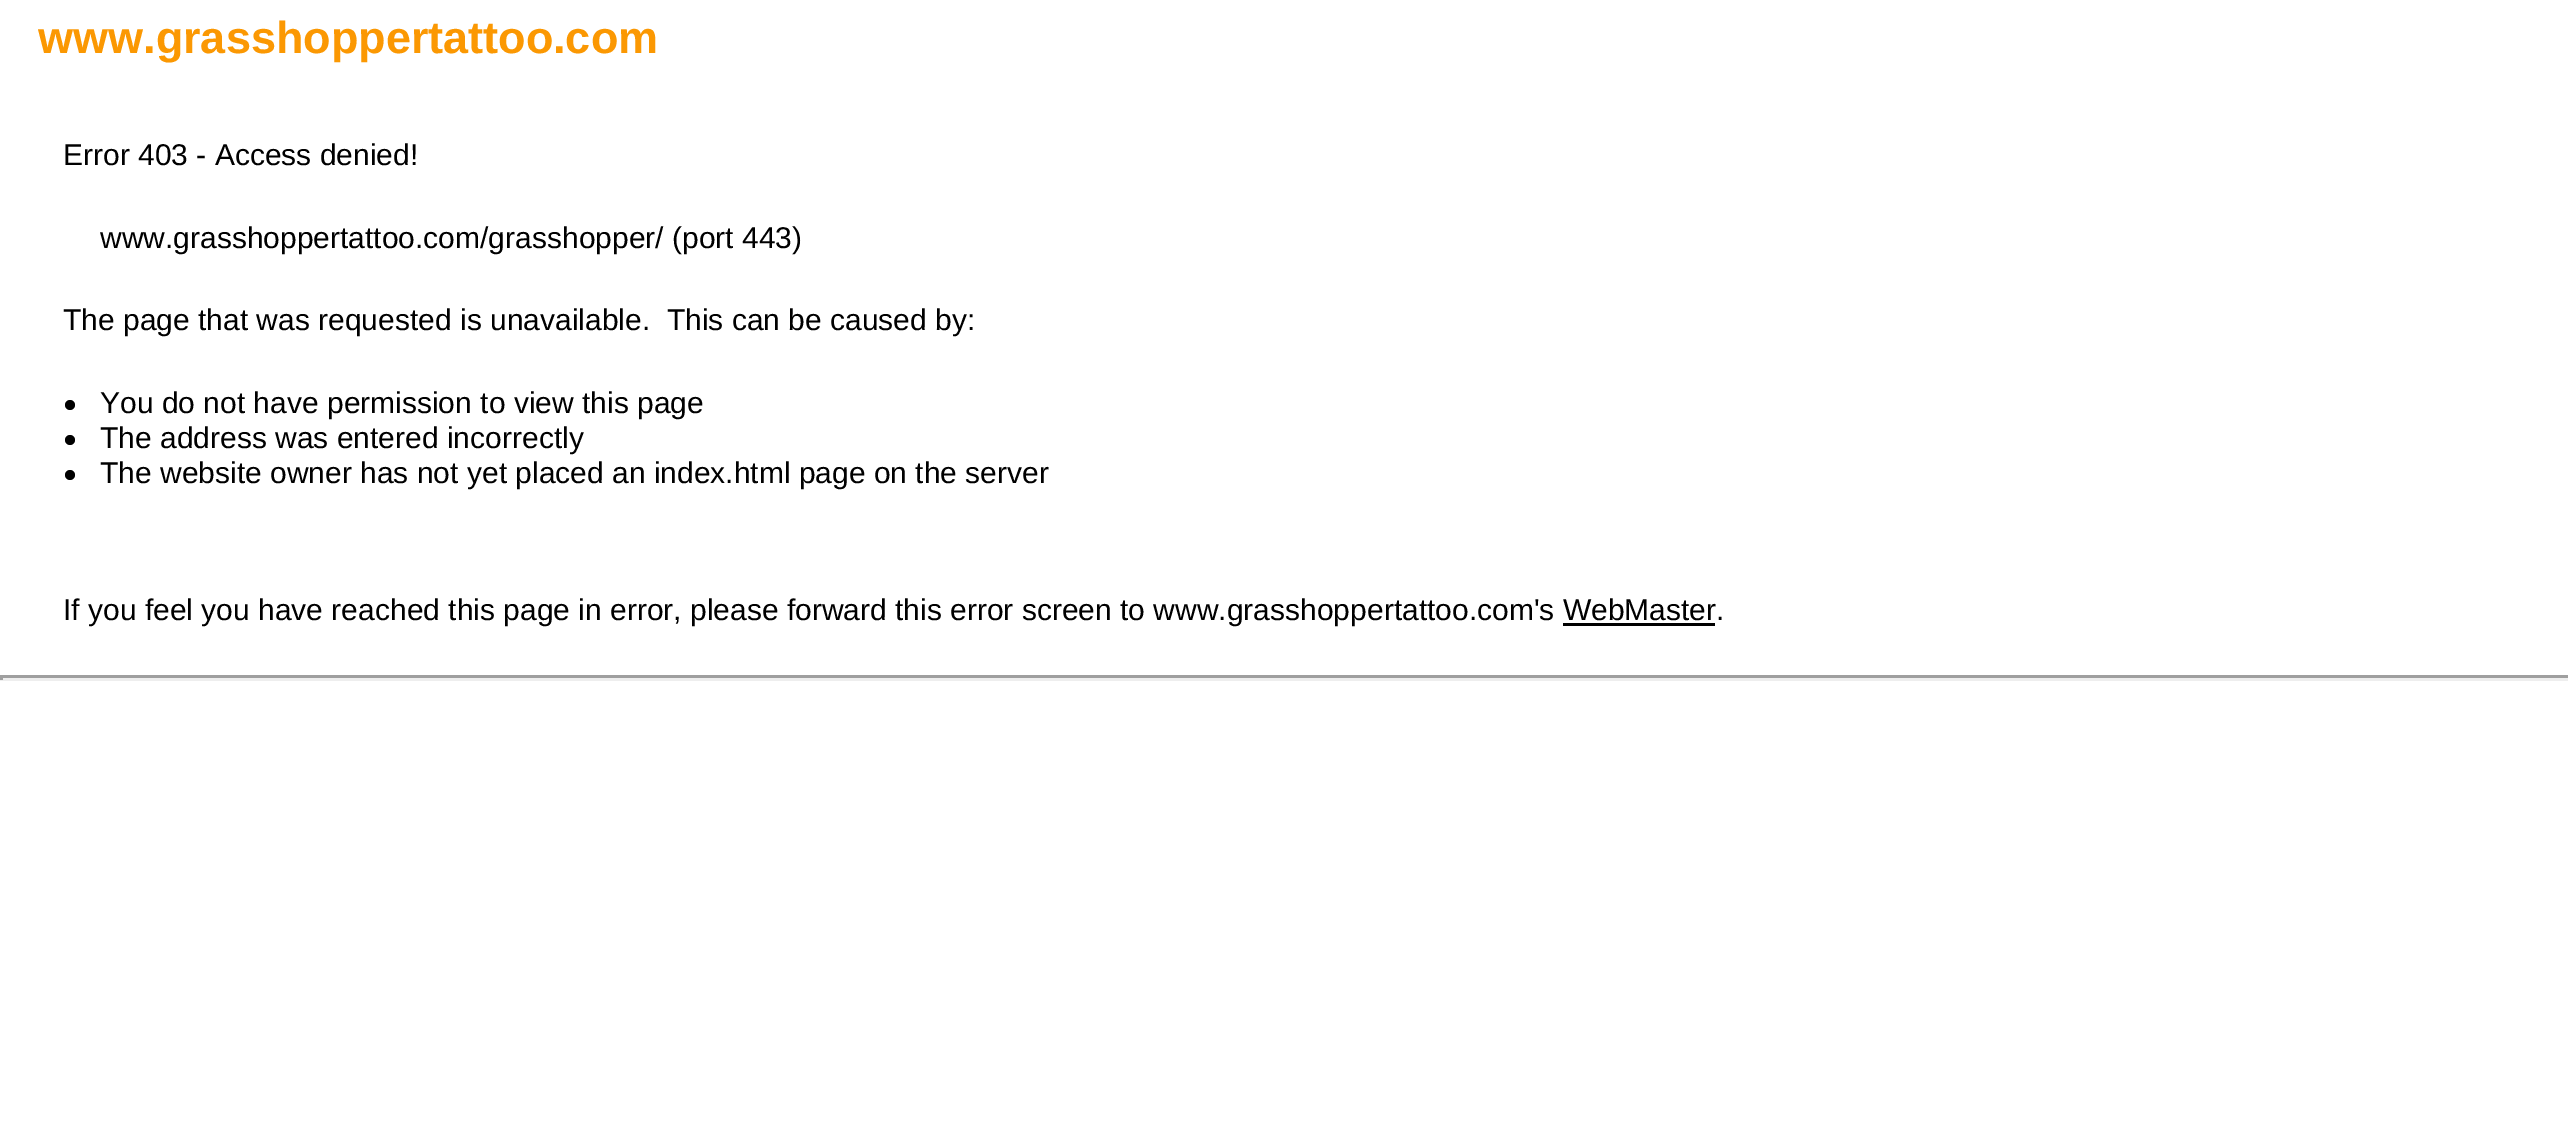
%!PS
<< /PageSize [2568 1122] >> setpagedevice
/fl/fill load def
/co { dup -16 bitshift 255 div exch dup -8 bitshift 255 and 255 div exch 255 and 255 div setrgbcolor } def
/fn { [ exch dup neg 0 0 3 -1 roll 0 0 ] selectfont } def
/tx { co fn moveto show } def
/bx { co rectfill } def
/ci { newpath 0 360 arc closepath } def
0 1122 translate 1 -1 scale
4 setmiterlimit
0 0 2568 1122 16#FFFFFF bx
16#000000 co
70 405 5 ci fl
70 440 5 ci fl
70 475 5 ci fl
1563 623 152 3 16#000000 bx
0 675 2568 3 16#9F9F9F bx
0 678 2568 3 16#EEEEEE bx
0 675 3 5 16#9F9F9F bx
(www.grasshoppertattoo.com) 38 53 /LiberationSans-Bold 45 16#FB9802 tx
(Error 403 - Access denied!) 63 165 /LiberationSans-Regular 30 16#000000 tx
(www.grasshoppertattoo.com/grasshopper/ \(port 443\)) 100 248 /LiberationSans-Regular 30 16#000000 tx
(The page that was requested is unavailable.  This can be caused by:) 63 330 /LiberationSans-Regular 30 16#000000 tx
(You do not have permission to view this page) 100 413 /LiberationSans-Regular 30 16#000000 tx
(The address was entered incorrectly) 100 448 /LiberationSans-Regular 30 16#000000 tx
(The website owner has not yet placed an index.html page on the server) 100 483 /LiberationSans-Regular 30 16#000000 tx
(If you feel you have reached this page in error, please forward this error screen to www.grasshoppertattoo.com's WebMaster.) 63 620 /LiberationSans-Regular 30 16#000000 tx
showpage
